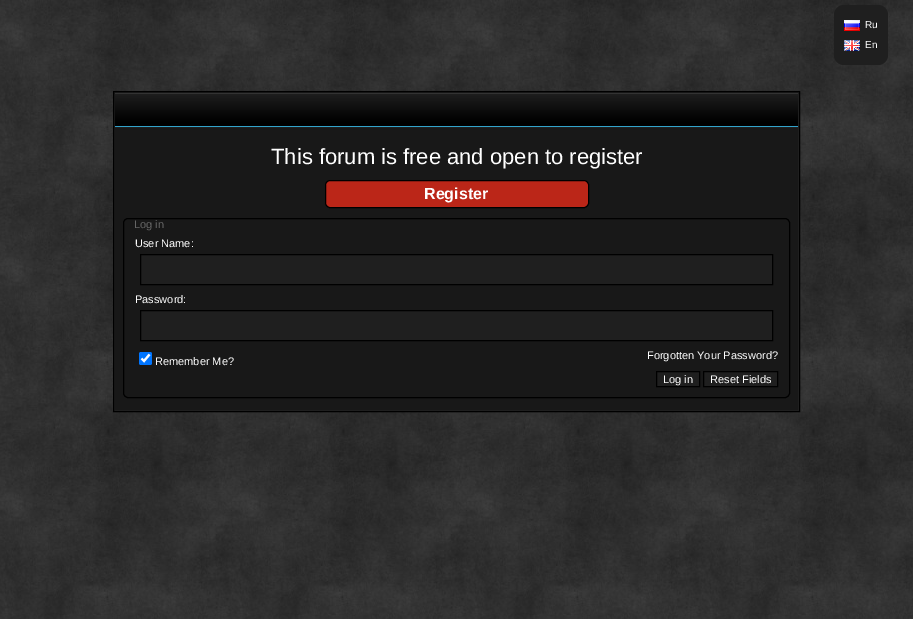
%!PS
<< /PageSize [913 619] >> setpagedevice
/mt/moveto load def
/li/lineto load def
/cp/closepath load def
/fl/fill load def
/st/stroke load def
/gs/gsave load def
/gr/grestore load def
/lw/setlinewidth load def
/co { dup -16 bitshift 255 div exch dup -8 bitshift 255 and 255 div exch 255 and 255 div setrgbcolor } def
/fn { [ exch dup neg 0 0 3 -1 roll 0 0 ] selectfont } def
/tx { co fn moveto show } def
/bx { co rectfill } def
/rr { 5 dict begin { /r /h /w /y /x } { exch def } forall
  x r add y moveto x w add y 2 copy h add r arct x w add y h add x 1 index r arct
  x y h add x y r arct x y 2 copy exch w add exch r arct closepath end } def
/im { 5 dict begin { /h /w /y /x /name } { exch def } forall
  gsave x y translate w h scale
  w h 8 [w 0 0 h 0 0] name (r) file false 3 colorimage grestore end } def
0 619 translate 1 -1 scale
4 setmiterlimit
0 0 913 619 16#FFFFFF bx
(media/1.raw) 0 0 913 619 im
16#1F1F1F co
834 5 54 60 10 rr fl
(media/2.raw) 844 20 16 11 im
(media/3.raw) 844 40 16 11 im
113.5 91.5 mt 799.5 91.5 li 799.5 411.5 li 113.5 411.5 li cp gs fl gr
16#000000 co
st
(media/4.raw) 115 93 683 34 im
115 128 683 282 16#181818 bx
16#BB2618 co
325.5 180.5 263 27 4.5 rr gs fl gr
16#000000 co
st
123.5 218.5 666 179 4.5 rr st
16#1F1F1F co
140.5 254.5 mt 772.5 254.5 li 772.5 284.5 li 140.5 284.5 li cp gs fl gr
16#000000 co
st
16#1F1F1F co
140.5 310.5 mt 772.5 310.5 li 772.5 340.5 li 140.5 340.5 li cp gs fl gr
16#000000 co
st
16#0075FF co
139 352 13 13 2 rr fl
16#FFFFFF co
2.1 lw
141.5 358.5 mt 144 361 li 149.5 354.5 li st
16#1F1F1F co
656.5 371.5 mt 699.5 371.5 li 699.5 386.5 li 656.5 386.5 li cp gs fl gr
16#000000 co
1 lw
st
16#1F1F1F co
703.5 371.5 mt 777.5 371.5 li 777.5 386.5 li 703.5 386.5 li cp gs fl gr
16#000000 co
st
(Ru) 865 28 /LiberationSans-Regular 10 16#FFFFFF tx
(En) 865 48 /LiberationSans-Regular 10 16#FFFFFF tx
(This forum is free and open to register) 271 164 /LiberationSans-Regular 22 16#FFFFFF tx
(Register) 424 199 /LiberationSans-Bold 16 16#FFFFFF tx
(Log in) 134 228 /LiberationSans-Regular 11 16#666666 tx
(User Name:) 135 247 /LiberationSans-Regular 11 16#FFFFFF tx
(Password:) 135 303 /LiberationSans-Regular 11 16#FFFFFF tx
(Remember Me?) 155 365 /LiberationSans-Regular 11 16#FFFFFF tx
(Forgotten Your Password?) 647 359 /LiberationSans-Regular 11 16#FFFFFF tx
(Log in) 663 383 /LiberationSans-Regular 11 16#FFFFFF tx
(Reset Fields) 710 383 /LiberationSans-Regular 11 16#FFFFFF tx
showpage
